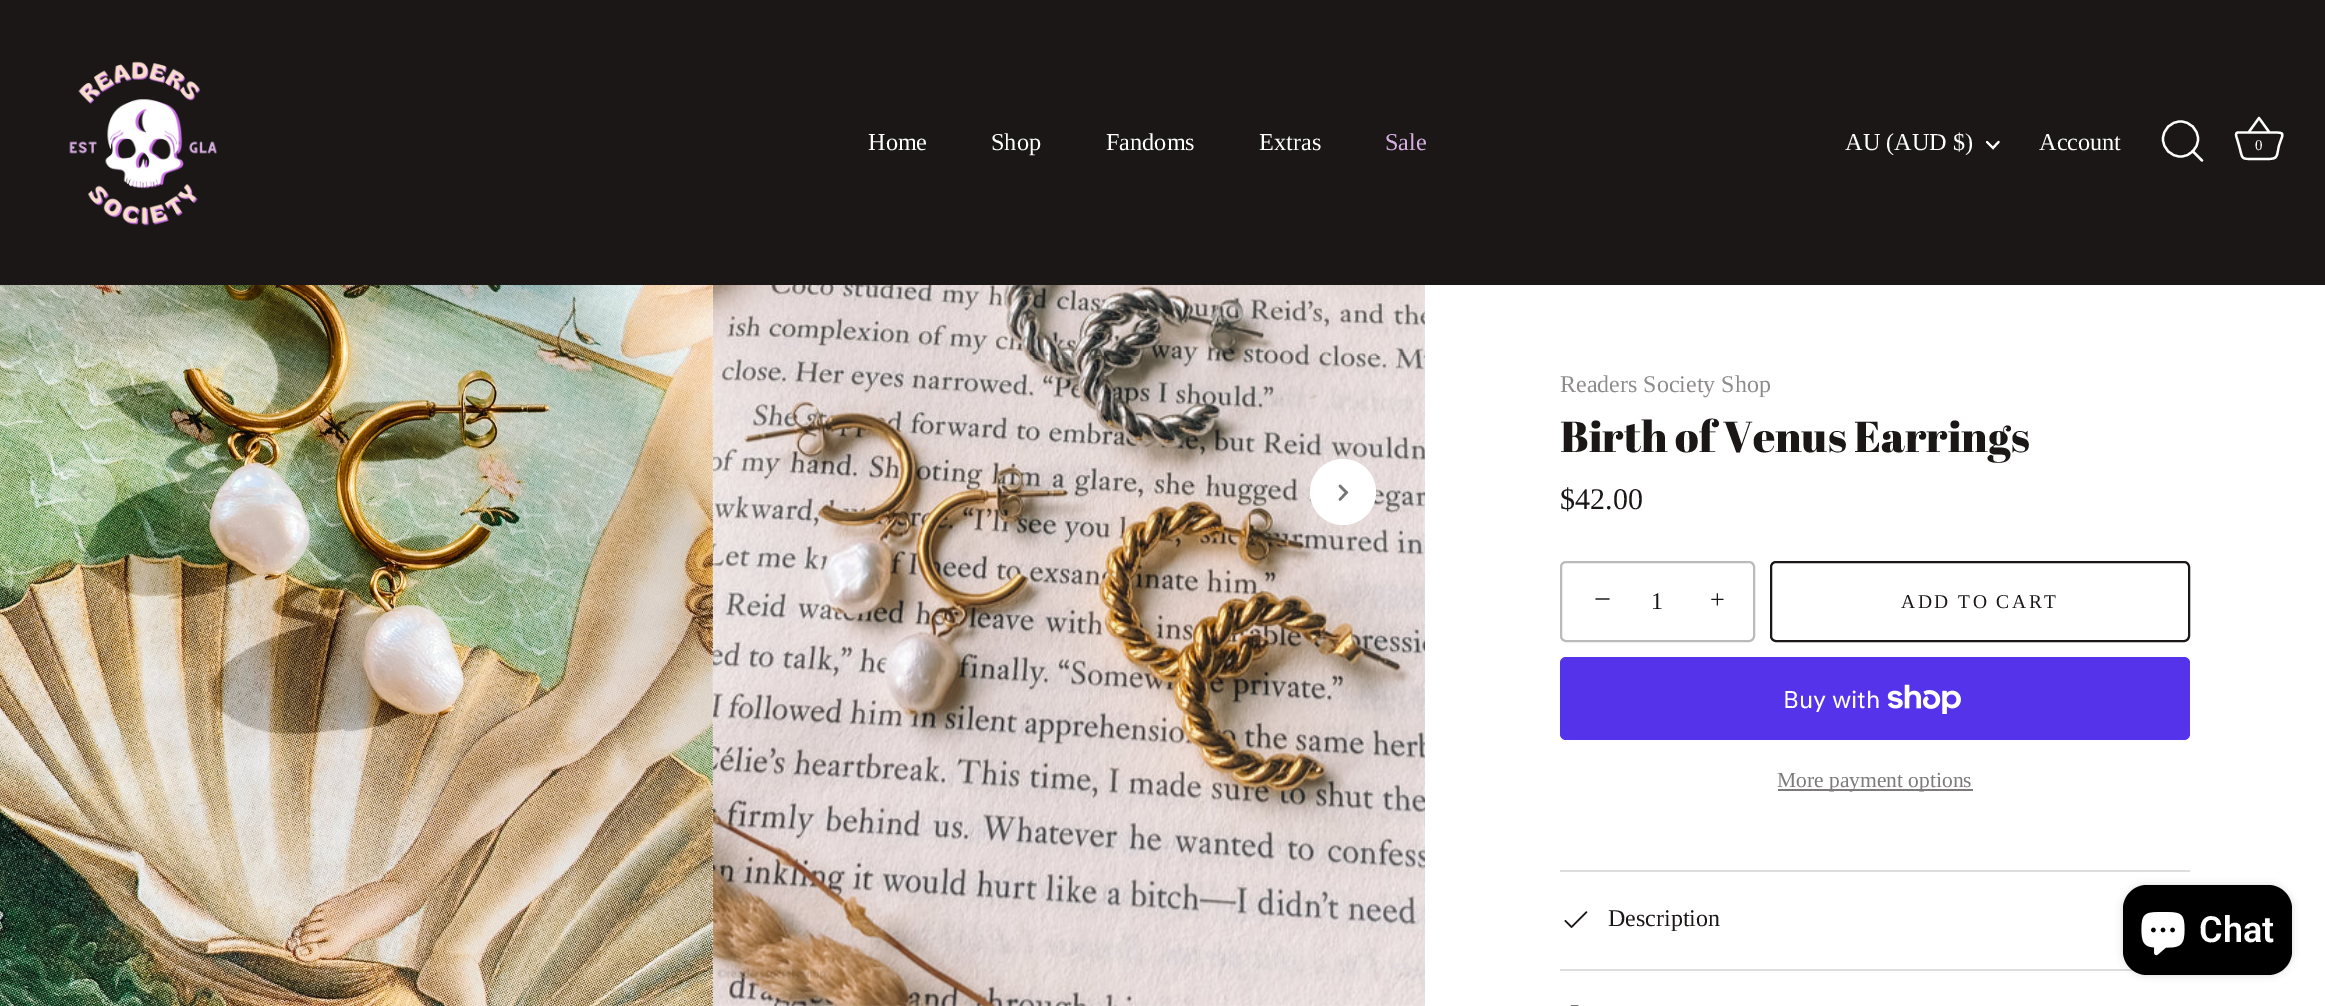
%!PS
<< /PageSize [2325 1006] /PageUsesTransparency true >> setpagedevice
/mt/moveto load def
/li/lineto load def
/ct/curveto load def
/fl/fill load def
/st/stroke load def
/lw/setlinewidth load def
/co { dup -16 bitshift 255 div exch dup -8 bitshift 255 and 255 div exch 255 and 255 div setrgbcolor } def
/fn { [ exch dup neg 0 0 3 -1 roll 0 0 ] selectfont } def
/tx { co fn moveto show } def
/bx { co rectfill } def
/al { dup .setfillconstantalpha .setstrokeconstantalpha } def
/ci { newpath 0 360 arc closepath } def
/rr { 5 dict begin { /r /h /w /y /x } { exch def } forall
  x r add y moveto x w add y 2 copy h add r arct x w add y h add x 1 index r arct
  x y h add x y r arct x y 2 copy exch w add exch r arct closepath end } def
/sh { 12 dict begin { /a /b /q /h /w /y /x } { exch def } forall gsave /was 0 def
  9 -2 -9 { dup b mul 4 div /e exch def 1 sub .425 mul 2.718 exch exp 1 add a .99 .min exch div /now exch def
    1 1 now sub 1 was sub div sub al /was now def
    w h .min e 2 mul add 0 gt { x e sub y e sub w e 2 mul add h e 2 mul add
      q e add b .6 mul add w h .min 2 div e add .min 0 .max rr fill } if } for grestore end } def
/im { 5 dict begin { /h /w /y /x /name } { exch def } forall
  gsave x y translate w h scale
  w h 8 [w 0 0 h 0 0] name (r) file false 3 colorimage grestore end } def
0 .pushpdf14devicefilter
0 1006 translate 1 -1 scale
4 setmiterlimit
0 0 2325 1006 16#FFFFFF bx
0 0 2325 285 16#1B1717 bx
(media/1.raw) 69 61 148 165 im
16#FFFFFF co
2.1 lw
1 setlinecap
1987 142 mt 1993 148 li 1998.5 142 li st
2.2 lw
0 setlinecap
2180.5 139 17.5 ci st
1 setlinecap
1 setlinejoin
2202 160.5 mt 2192.5 151 li st
0 setlinecap
2238 132.5 mt 2234.5 132.5 2236.5 137 2237 138.5 ct 2239 145.5 li 2243 159.5 2240 159 2254.5 159 ct 2267.5 159 li 2278.5 159 2276.5 156 2279 145.5 ct 2283 133 2286 132.5 2273 132.5 ct 2238 132.5 li 2248.5 132.5 mt 2259 118 li 2269.5 132.5 li st
(media/2.raw) 0 285 713 721 im
(media/3.raw) 713 285 712 721 im
0.35 al
83 492 33 ci fl
16#757575 co
2.5 lw
1 setlinecap
0 setlinejoin
85.5 486 mt 79 492.5 li 85.5 499.5 li st
1 al
16#FFFFFF co
1343 492 33 ci fl
16#757575 co
1340 499.5 mt 1346.5 492.5 li 1340 486 li st
16#BBBBBB co
2 lw
0 setlinecap
1561 562 193 79 5 rr st
16#1B1717 co
1771 562 418 79 5 rr st
16#5433EB co
1560 657 630 83 6 rr fl
(media/4.raw) 1887 684 74 30 im
1778 789 195 2 16#7C7A7A bx
1560 870 630 2 16#DDDDDD bx
1560 969 574 2 16#DDDDDD bx
(media/5.raw) 1564 911 24 17 im
(media/6.raw) 1570 1005 9 1 im
16#000000 co
2123 885 169 90 24 4 .15 sh
2123 885 169 90 24 rr fl
(media/7.raw) 2141 912 44 44 im
(Home) 868 150 /LiberationSerif-Regular 24.25 16#FFFFFF tx
(Shop) 991 150 /LiberationSerif-Regular 24.25 16#FFFFFF tx
(Fandoms) 1106 150 /LiberationSerif-Regular 24.25 16#FFFFFF tx
(Extras) 1259 150 /LiberationSerif-Regular 24.25 16#FFFFFF tx
(Sale) 1385 150 /LiberationSerif-Regular 24.25 16#D6AEE1 tx
(AU \(AUD $\)) 1845 150 /LiberationSerif-Regular 24.25 16#FFFFFF tx
(Account) 2039 150 /LiberationSerif-Regular 24.25 16#FFFFFF tx
(0) 2255 150 /LiberationSerif-Regular 15 16#FFFFFF tx
(Readers Society Shop) 1560 392 /LiberationSerif-Regular 24 16#8D8B8B tx
(Birth of Venus Earrings) 1560 452 /AbrilFatface-Regular 43.25 16#1B1717 tx
($42.00) 1560 509 /LiberationSerif-Regular 30 16#1B1717 tx
(−) 1594 609 /LiberationSerif-Regular 30 16#1B1717 tx
/LiberationSerif-Regular 24 fn
1651 609 mt 1 0 (1) ashow
(+) 1710 608 /LiberationSerif-Regular 26 16#1B1717 tx
/LiberationSerif-Regular 19.5 fn
1901 608 mt 2.5 0 (ADD TO CART) ashow
(Buy with) 1783 708 /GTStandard-Regular 24 16#FFFFFF tx
(More payment options) 1777 787 /LiberationSerif-Regular 21.5 16#7C7A7A tx
(Description) 1608 926 /LiberationSerif-Regular 24 16#1B1717 tx
(Chat) 2199 942 /Roboto-SemiBold 36 16#FFFFFF tx
.poppdf14devicefilter showpage
